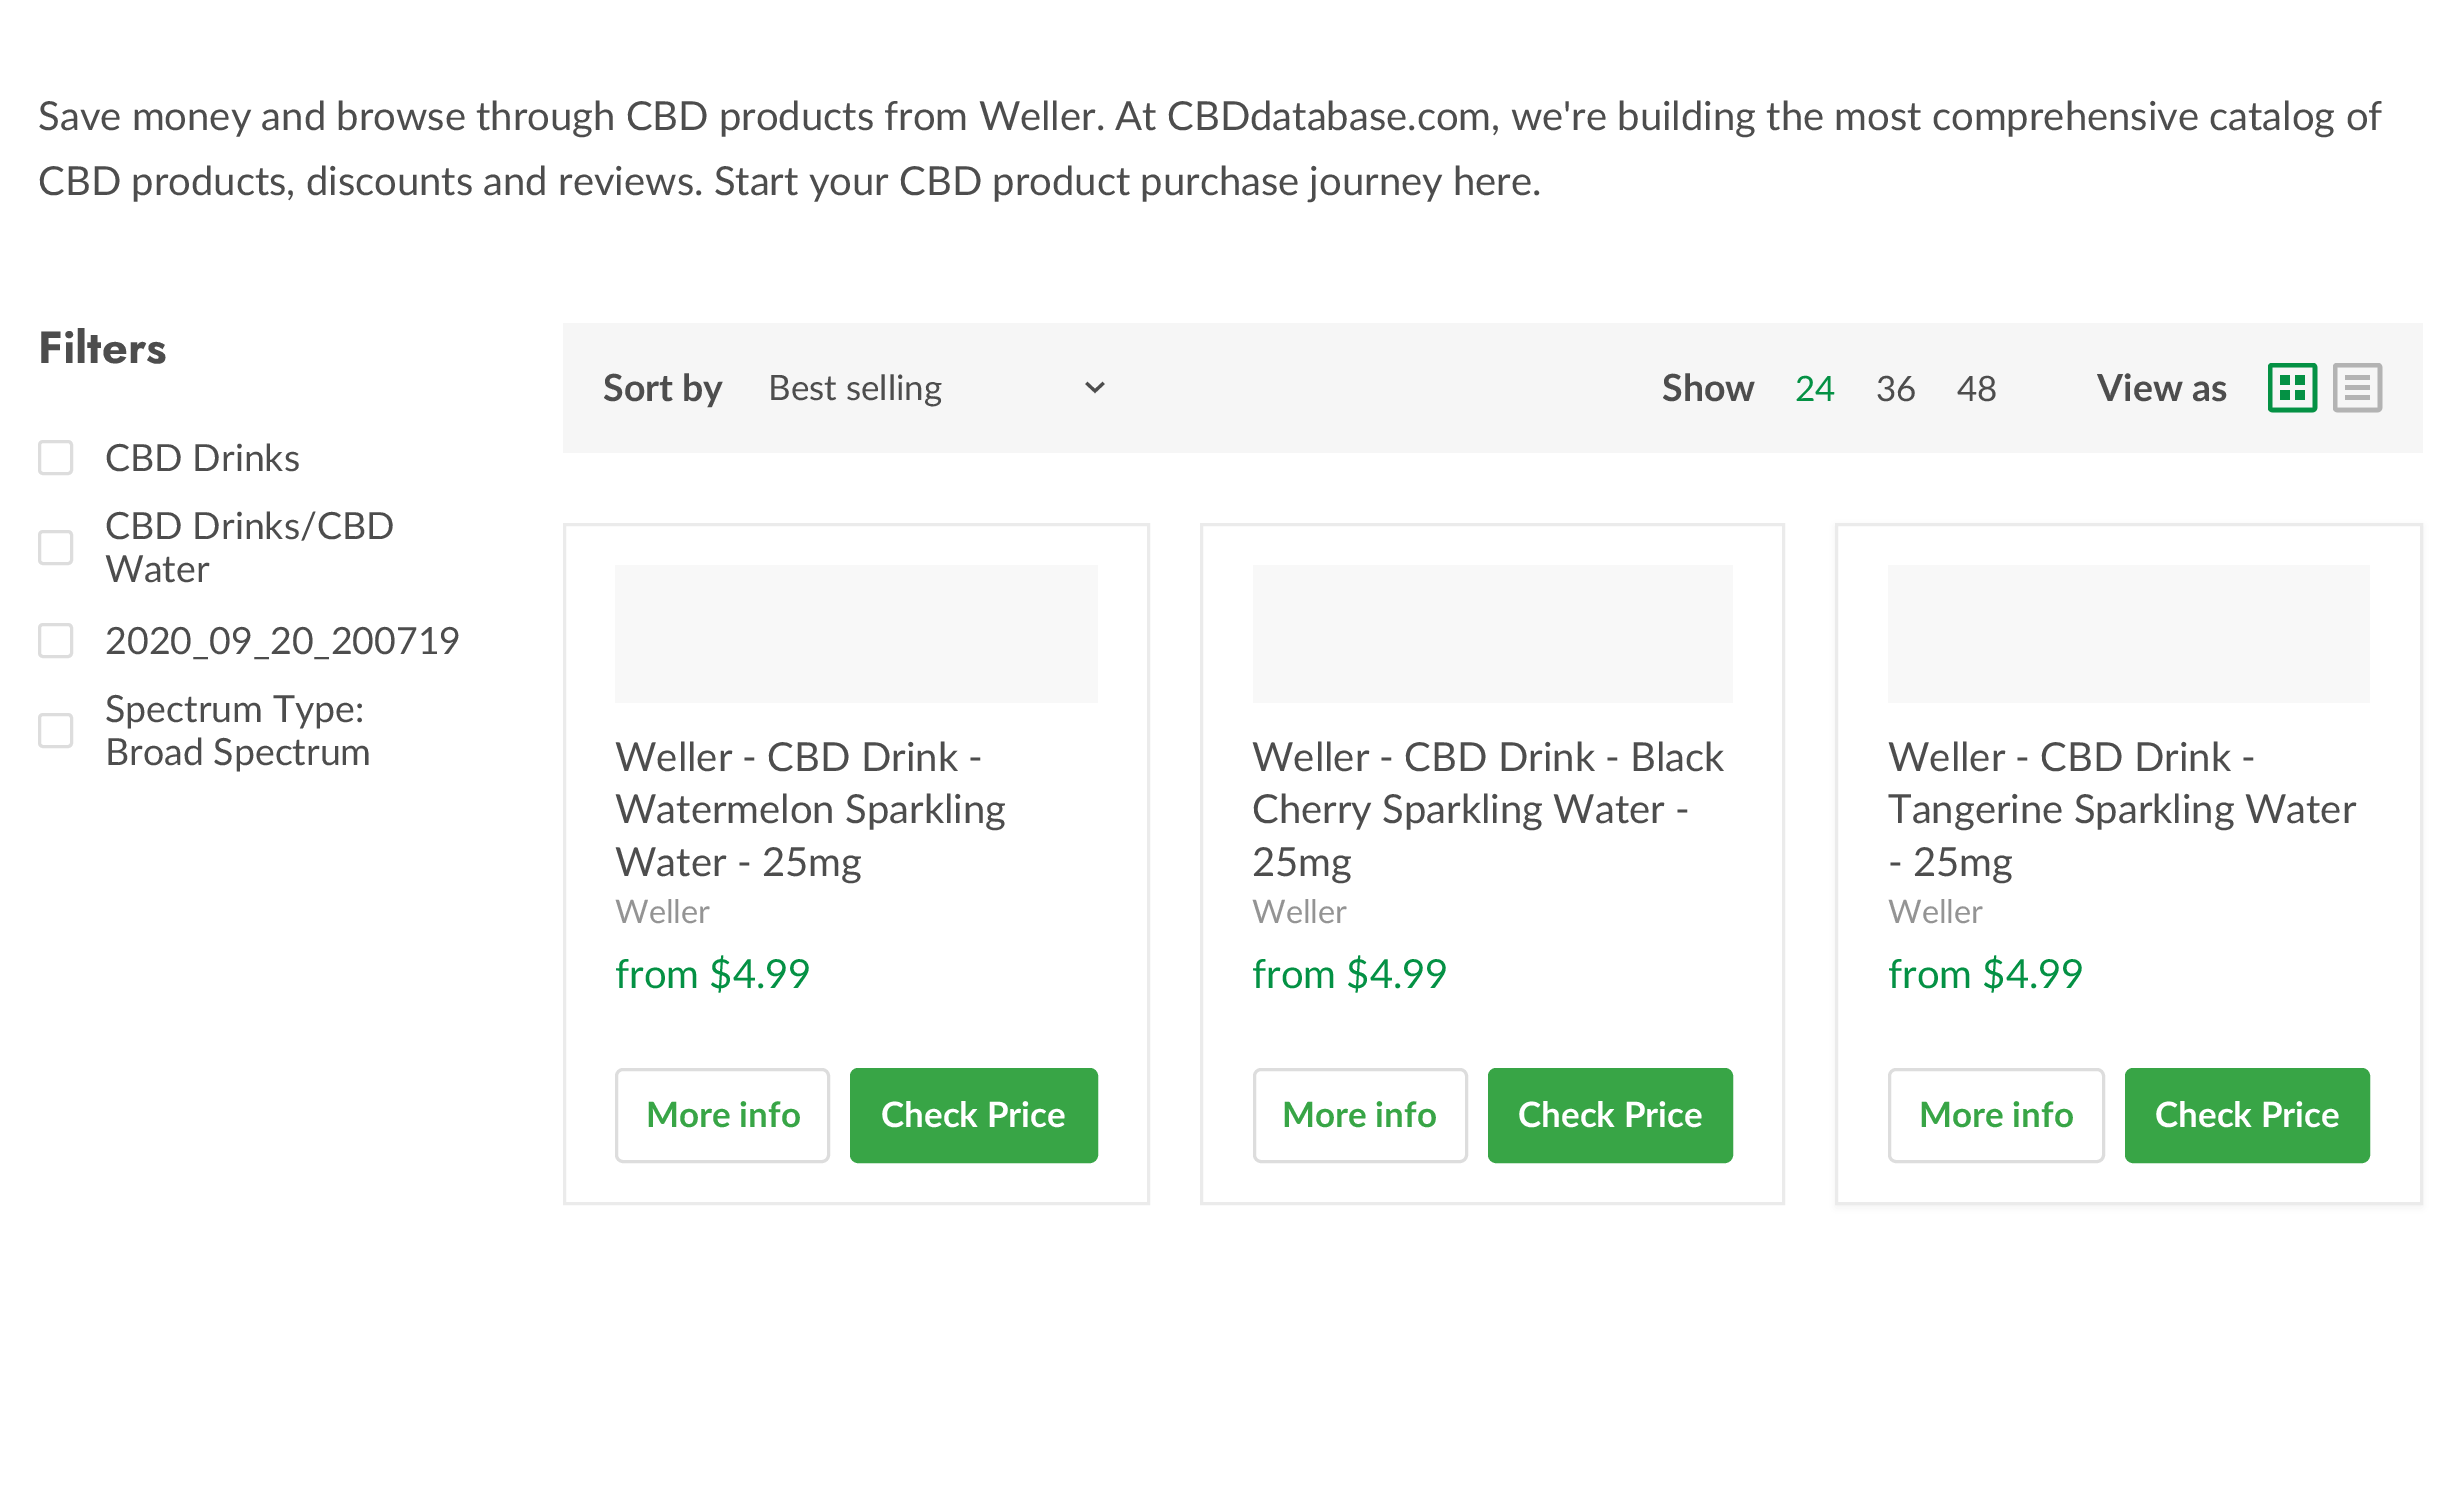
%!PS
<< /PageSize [2458 1489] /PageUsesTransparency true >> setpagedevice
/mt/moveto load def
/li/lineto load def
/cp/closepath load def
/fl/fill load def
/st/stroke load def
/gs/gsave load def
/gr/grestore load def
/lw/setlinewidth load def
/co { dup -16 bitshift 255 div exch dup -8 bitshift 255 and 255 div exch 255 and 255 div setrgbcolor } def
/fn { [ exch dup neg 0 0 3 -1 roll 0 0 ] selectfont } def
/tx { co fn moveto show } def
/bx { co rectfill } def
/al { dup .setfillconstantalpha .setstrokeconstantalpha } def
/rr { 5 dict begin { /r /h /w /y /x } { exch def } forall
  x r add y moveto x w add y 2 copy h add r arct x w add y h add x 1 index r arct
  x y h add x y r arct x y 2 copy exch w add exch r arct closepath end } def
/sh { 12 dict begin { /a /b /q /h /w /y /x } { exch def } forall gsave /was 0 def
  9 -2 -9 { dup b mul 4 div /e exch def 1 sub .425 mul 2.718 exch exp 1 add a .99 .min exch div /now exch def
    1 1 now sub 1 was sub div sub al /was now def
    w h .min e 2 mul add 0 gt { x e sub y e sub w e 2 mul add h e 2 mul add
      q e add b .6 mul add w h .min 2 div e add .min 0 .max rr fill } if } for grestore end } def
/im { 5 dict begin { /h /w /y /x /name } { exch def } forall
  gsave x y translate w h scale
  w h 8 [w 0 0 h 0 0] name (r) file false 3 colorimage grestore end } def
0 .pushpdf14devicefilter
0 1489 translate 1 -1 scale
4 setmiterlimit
0 0 2458 1489 16#FFFFFF bx
16#DDDDDD co
3 lw
39.5 441.5 32 32 3.5 rr st
39.5 531.5 32 32 3.5 rr st
39.5 624.5 32 32 3.5 rr st
39.5 714.5 32 32 3.5 rr st
563 323 1860 130 16#F6F6F6 bx
16#4D4D4D co
3.1 lw
2 setlinecap
1095 391 mt 1102.5 384 li 1095 391 mt 1087.5 384 li st
(media/1.raw) 2268 363 50 50 im
(media/2.raw) 2333 363 50 50 im
16#EBEBEB co
3 lw
0 setlinecap
564.5 524.5 584 679 rectstroke
615 565 483 138 16#F8F8F8 bx
16#DDDDDD co
616.5 1069.5 212 92 6.5 rr st
16#38A546 co
851.5 1069.5 245 92 6.5 rr gs fl gr
st
16#EBEBEB co
1201.5 524.5 582 679 rectstroke
1253 565 480 138 16#F8F8F8 bx
16#DDDDDD co
1254.5 1069.5 212 92 6.5 rr st
16#38A546 co
1489.5 1069.5 242 92 6.5 rr gs fl gr
st
16#808080 co
1835 525 588 683 0 5 .11 sh
16#FFFFFF co
1836.5 524.5 mt 2421.5 524.5 li 2421.5 1203.5 li 1836.5 1203.5 li cp gs fl gr
16#EBEBEB co
st
1888 565 482 138 16#F8F8F8 bx
16#DDDDDD co
1889.5 1069.5 214 92 6.5 rr st
16#38A546 co
2126.5 1069.5 242 92 6.5 rr gs fl gr
st
(Save money and browse through CBD products from Weller. At CBDdatabase.com, we're building the most comprehensive catalog of) 38 130 /Lato-Regular 40 16#4D4D4D tx
(CBD products, discounts and reviews. Start your CBD product purchase journey here.) 38 195 /Lato-Regular 40 16#4D4D4D tx
(Filters) 38 363 /Jost-Bold 45 16#4D4D4D tx
(CBD Drinks) 105 471 /Lato-Regular 37.5 16#4D4D4D tx
(CBD Drinks/CBD) 105 539 /Lato-Regular 37.5 16#4D4D4D tx
(Water) 105 582 /Lato-Regular 37.5 16#4D4D4D tx
(2020_09_20_200719) 105 654 /Lato-Regular 37.5 16#4D4D4D tx
(Spectrum Type:) 105 722 /Lato-Regular 37.5 16#4D4D4D tx
(Broad Spectrum) 105 765 /Lato-Regular 37.5 16#4D4D4D tx
(Sort by) 603 401 /Lato-Bold 37.5 16#4D4D4D tx
(Best selling) 768 400 /Lato-Regular 35 16#4D4D4D tx
(Show) 1662 401 /Lato-Bold 37.5 16#4D4D4D tx
(24) 1795 401 /Lato-Regular 35 16#049144 tx
(36) 1876 401 /Lato-Regular 35 16#4D4D4D tx
(48) 1957 401 /Lato-Regular 35 16#4D4D4D tx
(View as) 2097 401 /Lato-Bold 37.5 16#4D4D4D tx
(Weller - CBD Drink -) 615 771 /Lato-Regular 40 16#4D4D4D tx
(Watermelon Sparkling) 615 823 /Lato-Regular 40 16#4D4D4D tx
(Water - 25mg) 615 876 /Lato-Regular 40 16#4D4D4D tx
(Weller) 615 923 /Lato-Regular 32.5 16#949494 tx
(from $4.99) 615 988 /Lato-Regular 40 16#049144 tx
(More info) 646 1127 /Lato-Bold 35 16#38A546 tx
(Check Price) 881 1127 /Lato-Bold 35 16#FFFFFF tx
(Weller - CBD Drink - Black) 1252 771 /Lato-Regular 40 16#4D4D4D tx
(Cherry Sparkling Water -) 1252 823 /Lato-Regular 40 16#4D4D4D tx
(25mg) 1252 876 /Lato-Regular 40 16#4D4D4D tx
(Weller) 1252 923 /Lato-Regular 32.5 16#949494 tx
(from $4.99) 1252 988 /Lato-Regular 40 16#049144 tx
(More info) 1282 1127 /Lato-Bold 35 16#38A546 tx
(Check Price) 1518 1127 /Lato-Bold 35 16#FFFFFF tx
(Weller - CBD Drink -) 1888 771 /Lato-Regular 40 16#4D4D4D tx
(Tangerine Sparkling Water) 1888 823 /Lato-Regular 40 16#4D4D4D tx
(- 25mg) 1888 876 /Lato-Regular 40 16#4D4D4D tx
(Weller) 1888 923 /Lato-Regular 32.5 16#949494 tx
(from $4.99) 1888 988 /Lato-Regular 40 16#049144 tx
(More info) 1919 1127 /Lato-Bold 35 16#38A546 tx
(Check Price) 2155 1127 /Lato-Bold 35 16#FFFFFF tx
.poppdf14devicefilter showpage
